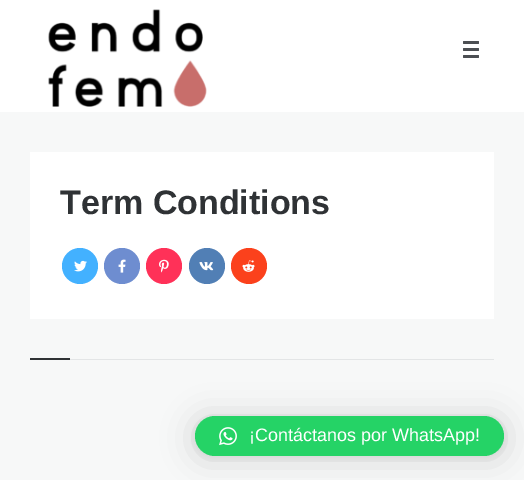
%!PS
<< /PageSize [524 480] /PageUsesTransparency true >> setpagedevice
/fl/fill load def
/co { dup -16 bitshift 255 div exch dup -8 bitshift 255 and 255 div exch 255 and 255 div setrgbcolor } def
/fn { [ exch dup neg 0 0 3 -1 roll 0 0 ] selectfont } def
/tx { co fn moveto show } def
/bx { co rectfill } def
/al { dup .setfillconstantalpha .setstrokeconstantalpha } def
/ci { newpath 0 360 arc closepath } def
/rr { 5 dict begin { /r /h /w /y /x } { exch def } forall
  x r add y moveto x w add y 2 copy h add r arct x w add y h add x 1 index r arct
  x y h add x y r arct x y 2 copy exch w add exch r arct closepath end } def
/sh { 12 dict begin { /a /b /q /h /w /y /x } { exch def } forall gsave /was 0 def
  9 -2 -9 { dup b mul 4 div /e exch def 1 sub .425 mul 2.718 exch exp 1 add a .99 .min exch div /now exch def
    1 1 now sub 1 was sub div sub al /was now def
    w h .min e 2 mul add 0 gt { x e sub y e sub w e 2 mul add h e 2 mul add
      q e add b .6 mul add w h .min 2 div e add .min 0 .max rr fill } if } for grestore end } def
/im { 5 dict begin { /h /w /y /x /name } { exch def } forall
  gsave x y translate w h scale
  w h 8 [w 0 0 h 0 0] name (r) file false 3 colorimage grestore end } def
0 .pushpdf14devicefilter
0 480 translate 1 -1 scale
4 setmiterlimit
0 0 524 480 16#F7F8F8 bx
0 0 524 112 16#FFFFFF bx
(media/1.raw) 48 9 159 98 im
16#4C4F53 co
463 48 16 3 1 rr fl
463 41 16 3 1 rr fl
463 55 16 3 1 rr fl
30 152 464 167 16#FFFFFF bx
16#43B1FF co
80 266 18 ci fl
(media/2.raw) 74 260 13 12 im
16#6E8DD0 co
122 266 18 ci fl
(media/3.raw) 118 259 8 14 im
16#FF3158 co
164 266 18 ci fl
(media/4.raw) 159 259 10 14 im
16#517FB5 co
207 266 18 ci fl
(media/5.raw) 199 262 15 9 im
16#FB411C co
249 266 18 ci fl
(media/6.raw) 242 260 13 12 im
70 359 424 1 16#E3E5E6 bx
30 358 40 2 16#2F3235 bx
16#000000 co
195 418 309 40 20 16 .16 sh
195 417 309 40 20 3 .06 sh
16#25D366 co
195 416 309 40 20 rr fl
(media/7.raw) 219 427 18 19 im
(Term Conditions) 60 214 /LiberationSans-Bold 34 16#2F3235 tx
(¡Contáctanos por WhatsApp!) 249 441 /LiberationSans-Regular 18 16#FFFFFF tx
.poppdf14devicefilter showpage
